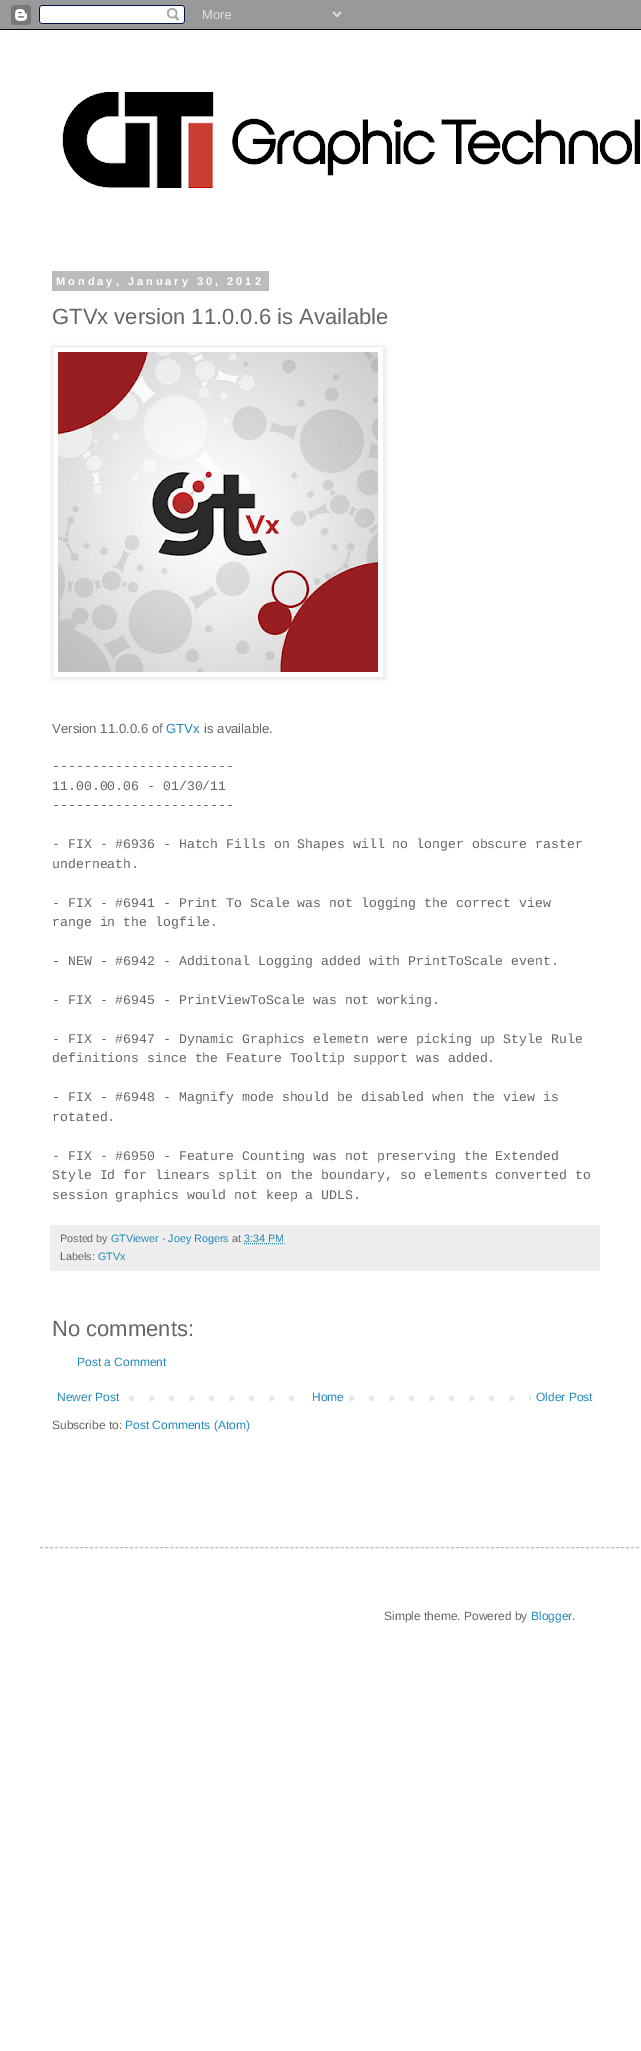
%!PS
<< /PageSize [641 2051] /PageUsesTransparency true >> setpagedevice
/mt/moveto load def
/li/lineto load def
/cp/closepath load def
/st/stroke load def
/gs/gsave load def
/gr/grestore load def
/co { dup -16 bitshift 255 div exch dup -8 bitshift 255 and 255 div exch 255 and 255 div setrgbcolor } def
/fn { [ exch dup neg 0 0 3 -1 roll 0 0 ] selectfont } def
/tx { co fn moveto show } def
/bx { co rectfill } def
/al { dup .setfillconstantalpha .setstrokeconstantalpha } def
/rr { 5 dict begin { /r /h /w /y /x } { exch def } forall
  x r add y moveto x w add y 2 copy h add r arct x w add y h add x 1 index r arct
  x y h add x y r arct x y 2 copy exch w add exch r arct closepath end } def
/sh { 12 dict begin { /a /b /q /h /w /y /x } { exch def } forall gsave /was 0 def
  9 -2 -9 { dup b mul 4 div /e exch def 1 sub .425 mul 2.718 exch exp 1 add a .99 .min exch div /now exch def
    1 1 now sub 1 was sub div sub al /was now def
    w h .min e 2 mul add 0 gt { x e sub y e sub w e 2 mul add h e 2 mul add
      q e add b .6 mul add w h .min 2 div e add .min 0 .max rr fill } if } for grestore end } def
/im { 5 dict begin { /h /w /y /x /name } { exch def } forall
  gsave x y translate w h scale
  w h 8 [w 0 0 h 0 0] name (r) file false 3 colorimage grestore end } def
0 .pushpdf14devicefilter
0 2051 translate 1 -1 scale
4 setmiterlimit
0 0 641 2051 16#FFFFFF bx
(media/1.raw) 0 0 641 30 im
(media/2.raw) 62 92 578 96 im
52 271 217 20 16#BBBBBB bx
gs
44 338 mt 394 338 li 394 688 li 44 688 li cp 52 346 mt 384 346 li 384 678 li 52 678 li cp eoclip newpath
16#000000 co
53 347 332 332 0 2.5 .1 sh
gr
16#EEEEEE co
52.5 346.5 331 331 rectstroke
(media/3.raw) 58 352 320 320 im
50 1225 550 46 16#EEEEEE bx
16#2288BB co
[1 1] 0 setdash
244 1243.5 mt 284.5 1243.5 li st
(media/4.raw) 129 1396 402 5 im
309 1396 26 5 16#FFFFFF bx
16#BBBBBB co
[3 2.01] 0 setdash
40 1547.5 mt 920 1547.5 li st
/LiberationSans-Bold 11 fn
16#FFFFFF co
56 285 mt 3 0 (Monday, January 30, 2012) ashow
(GTVx version 11.0.0.6 is Available) 52 324 /LiberationSans-Regular 22 16#666666 tx
(Version 11.0.0.6 of) 52 733 /LiberationSans-Regular 13.2 16#666666 tx
(GTVx) 166 733 /LiberationSans-Regular 13.2 16#2288BB tx
(is available.) 204 733 /LiberationSans-Regular 13.2 16#666666 tx
(-----------------------) 52 770 /LiberationMono-Regular 13.2 16#666666 tx
(11.00.00.06 - 01/30/11) 52 790 /LiberationMono-Regular 13.2 16#666666 tx
(-----------------------) 52 809 /LiberationMono-Regular 13.2 16#666666 tx
(- FIX - #6936 - Hatch Fills on Shapes will no longer obscure raster) 52 848 /LiberationMono-Regular 13.2 16#666666 tx
(underneath.) 52 868 /LiberationMono-Regular 13.2 16#666666 tx
(- FIX - #6941 - Print To Scale was not logging the correct view) 52 907 /LiberationMono-Regular 13.2 16#666666 tx
(range in the logfile.) 52 926 /LiberationMono-Regular 13.2 16#666666 tx
(- NEW - #6942 - Additonal Logging added with PrintToScale event.) 52 965 /LiberationMono-Regular 13.2 16#666666 tx
(- FIX - #6945 - PrintViewToScale was not working.) 52 1004 /LiberationMono-Regular 13.2 16#666666 tx
(- FIX - #6947 - Dynamic Graphics elemetn were picking up Style Rule) 52 1043 /LiberationMono-Regular 13.2 16#666666 tx
(definitions since the Feature Tooltip support was added.) 52 1062 /LiberationMono-Regular 13.2 16#666666 tx
(- FIX - #6948 - Magnify mode should be disabled when the view is) 52 1101 /LiberationMono-Regular 13.2 16#666666 tx
(rotated.) 52 1121 /LiberationMono-Regular 13.2 16#666666 tx
(- FIX - #6950 - Feature Counting was not preserving the Extended) 52 1160 /LiberationMono-Regular 13.2 16#666666 tx
(Style Id for linears split on the boundary, so elements converted to) 52 1179 /LiberationMono-Regular 13.2 16#666666 tx
(session graphics would not keep a UDLS.) 52 1199 /LiberationMono-Regular 13.2 16#666666 tx
(Posted by) 60 1242 /LiberationSans-Regular 10.75 16#666666 tx
(GTViewer - Joey Rogers) 111 1242 /LiberationSans-Regular 10.75 16#2288BB tx
(at) 232 1242 /LiberationSans-Regular 10.75 16#666666 tx
(3:34 PM) 244 1242 /LiberationSans-Regular 10.75 16#2288BB tx
(Labels:) 60 1260 /LiberationSans-Regular 10.75 16#666666 tx
(GTVx) 98 1260 /LiberationSans-Regular 10.75 16#2288BB tx
(No comments:) 52 1336 /LiberationSans-Regular 22 16#666666 tx
(Post a Comment) 77 1366 /LiberationSans-Regular 12 16#2288BB tx
(Newer Post) 57 1401 /LiberationSans-Regular 12 16#2288BB tx
(Home) 312 1401 /LiberationSans-Regular 12 16#2288BB tx
(Older Post) 536 1401 /LiberationSans-Regular 12 16#2288BB tx
(Subscribe to:) 52 1429 /LiberationSans-Regular 12 16#666666 tx
(Post Comments \(Atom\)) 125 1429 /LiberationSans-Regular 12 16#2288BB tx
(Simple theme. Powered by) 384 1620 /LiberationSans-Regular 12 16#666666 tx
(Blogger) 531 1620 /LiberationSans-Regular 12 16#2288BB tx
(.) 572 1620 /LiberationSans-Regular 12 16#666666 tx
.poppdf14devicefilter showpage
